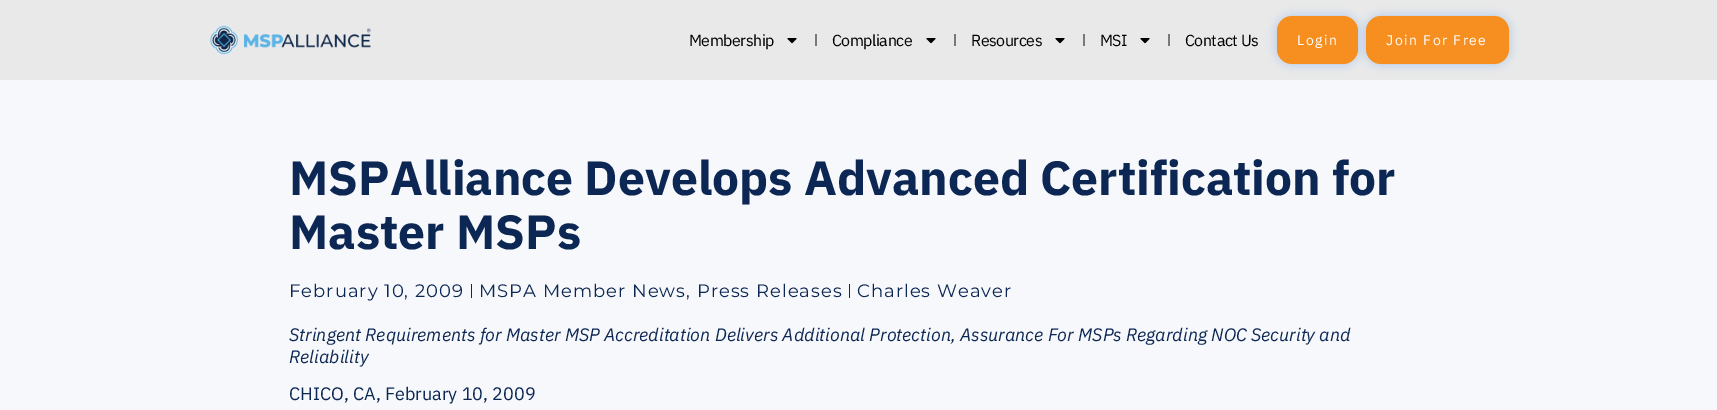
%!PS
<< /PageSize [1717 410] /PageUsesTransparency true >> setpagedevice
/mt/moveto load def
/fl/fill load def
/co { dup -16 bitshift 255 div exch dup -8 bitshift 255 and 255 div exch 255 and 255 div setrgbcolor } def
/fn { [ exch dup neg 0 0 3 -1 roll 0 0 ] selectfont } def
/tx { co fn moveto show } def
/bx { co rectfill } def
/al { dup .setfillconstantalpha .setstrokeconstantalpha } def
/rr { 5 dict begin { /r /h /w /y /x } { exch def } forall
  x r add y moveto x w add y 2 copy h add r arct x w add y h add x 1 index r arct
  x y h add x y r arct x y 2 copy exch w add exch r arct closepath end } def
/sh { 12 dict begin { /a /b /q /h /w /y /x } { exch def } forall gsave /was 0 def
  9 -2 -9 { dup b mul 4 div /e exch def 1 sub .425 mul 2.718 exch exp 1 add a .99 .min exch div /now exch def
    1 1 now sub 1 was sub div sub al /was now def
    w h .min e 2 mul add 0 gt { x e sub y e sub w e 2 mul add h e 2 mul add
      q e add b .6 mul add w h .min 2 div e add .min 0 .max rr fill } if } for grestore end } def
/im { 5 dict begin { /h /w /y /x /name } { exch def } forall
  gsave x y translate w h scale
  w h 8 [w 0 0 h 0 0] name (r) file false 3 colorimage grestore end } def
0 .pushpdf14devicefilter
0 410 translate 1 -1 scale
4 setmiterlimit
0 0 1717 410 16#F7F8FB bx
0 0 1717 80 16#E9E9E9 bx
(media/1.raw) 210 25 161 30 im
(media/2.raw) 787 38 10 6 im
815 34 2 12 16#7A7A7A bx
(media/2.raw) 926 38 10 6 im
954 34 2 12 16#7A7A7A bx
(media/2.raw) 1055 38 10 6 im
1083 34 2 12 16#7A7A7A bx
(media/2.raw) 1140 38 10 6 im
1168 34 2 12 16#7A7A7A bx
16#4081E5 co
1277 16 81 48 15 5 .35 sh
16#F78F20 co
1277 16 81 48 15 rr fl
16#4081E5 co
1366 16 143 48 15 5 .35 sh
16#F78F20 co
1366 16 143 48 15 rr fl
471 284 1 14 16#0C2753 bx
849 284 1 14 16#0C2753 bx
/IBMPlexSans-Regular 16 fn
16#000000 co
689 46 mt -.5 0 (Membership) ashow
832 46 mt -.5 0 (Compliance) ashow
971 46 mt -.5 0 (Resources) ashow
1100 46 mt -.5 0 (MSI) ashow
1185 46 mt -.5 0 (Contact Us) ashow
/IBMPlexSans-Regular 14 fn
16#FFFFFF co
1297 45 mt 1.5 0 (Login) ashow
1386 45 mt 1.5 0 (Join For Free) ashow
(MSPAlliance Develops Advanced Certification for) 289 195 /IBMPlexSans-Bold 48 16#0C2753 tx
(Master MSPs) 289 249 /IBMPlexSans-Bold 48 16#0C2753 tx
/Montserrat-Regular 18 fn
289 297 mt 1 0 (February 10, 2009) ashow
479 297 mt 1 0 (MSPA Member News, Press Releases) ashow
857 297 mt 1 0 (Charles Weaver) ashow
(Stringent Requirements for Master MSP Accreditation Delivers Additional Protection, Assurance For MSPs Regarding NOC Security and) 289 341 /IBMPlexSans-Italic 18 16#0C2753 tx
(Reliability) 289 363 /IBMPlexSans-Italic 18 16#0C2753 tx
(CHICO, CA, February 10, 2009) 289 400 /IBMPlexSans-Regular 18 16#0C2753 tx
.poppdf14devicefilter showpage
